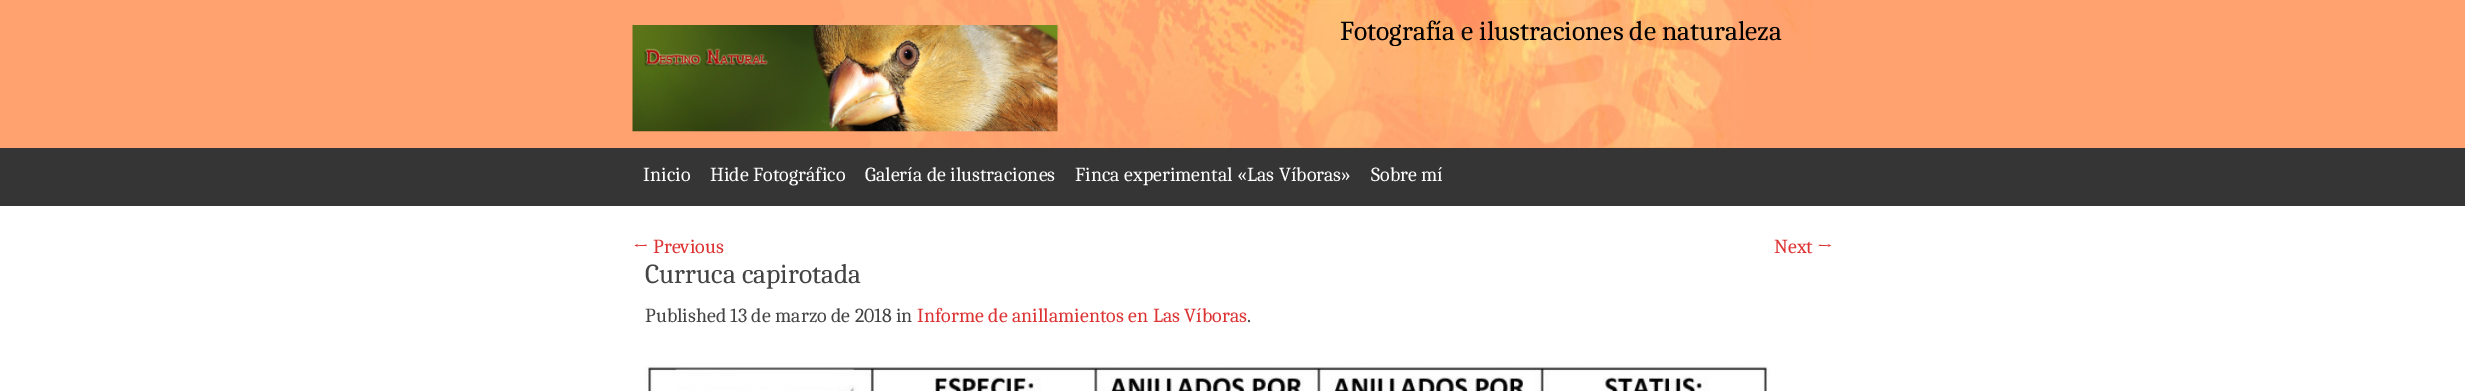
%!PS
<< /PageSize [2465 391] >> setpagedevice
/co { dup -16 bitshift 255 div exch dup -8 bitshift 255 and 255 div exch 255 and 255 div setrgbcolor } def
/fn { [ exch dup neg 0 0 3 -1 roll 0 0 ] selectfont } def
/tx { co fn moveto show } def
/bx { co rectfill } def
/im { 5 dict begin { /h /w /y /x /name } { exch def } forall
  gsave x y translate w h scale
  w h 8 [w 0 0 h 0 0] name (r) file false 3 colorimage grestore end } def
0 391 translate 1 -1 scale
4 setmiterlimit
0 0 2465 391 16#FFFFFF bx
0 0 2465 148 16#FFA26F bx
(media/1.raw) 813 0 1000 148 im
(media/2.raw) 632 25 426 107 im
0 148 2465 58 16#353535 bx
(media/3.raw) 645 366 1125 25 im
(Fotografía e ilustraciones de naturaleza) 1340 40 /Caladea-Regular 27.5 16#000000 tx
(Inicio) 643 181 /Caladea-Regular 20 16#FFFFFF tx
(Hide Fotográfico) 710 181 /Caladea-Regular 20 16#FFFFFF tx
(Galería de ilustraciones) 865 181 /Caladea-Regular 20 16#FFFFFF tx
(Finca experimental «Las Víboras») 1075 181 /Caladea-Regular 20 16#FFFFFF tx
(Sobre mí) 1371 181 /Caladea-Regular 20 16#FFFFFF tx
(← Previous) 633 253 /Caladea-Regular 20 16#DD3333 tx
(Next →) 1774 253 /Caladea-Regular 20 16#DD3333 tx
(Curruca capirotada) 645 283 /Caladea-Regular 27.5 16#444444 tx
(Published 13 de marzo de 2018 in) 645 322 /Caladea-Regular 20 16#444444 tx
(Informe de anillamientos en Las Víboras) 917 322 /Caladea-Regular 20 16#DD3333 tx
(.) 1247 322 /Caladea-Regular 20 16#444444 tx
showpage
